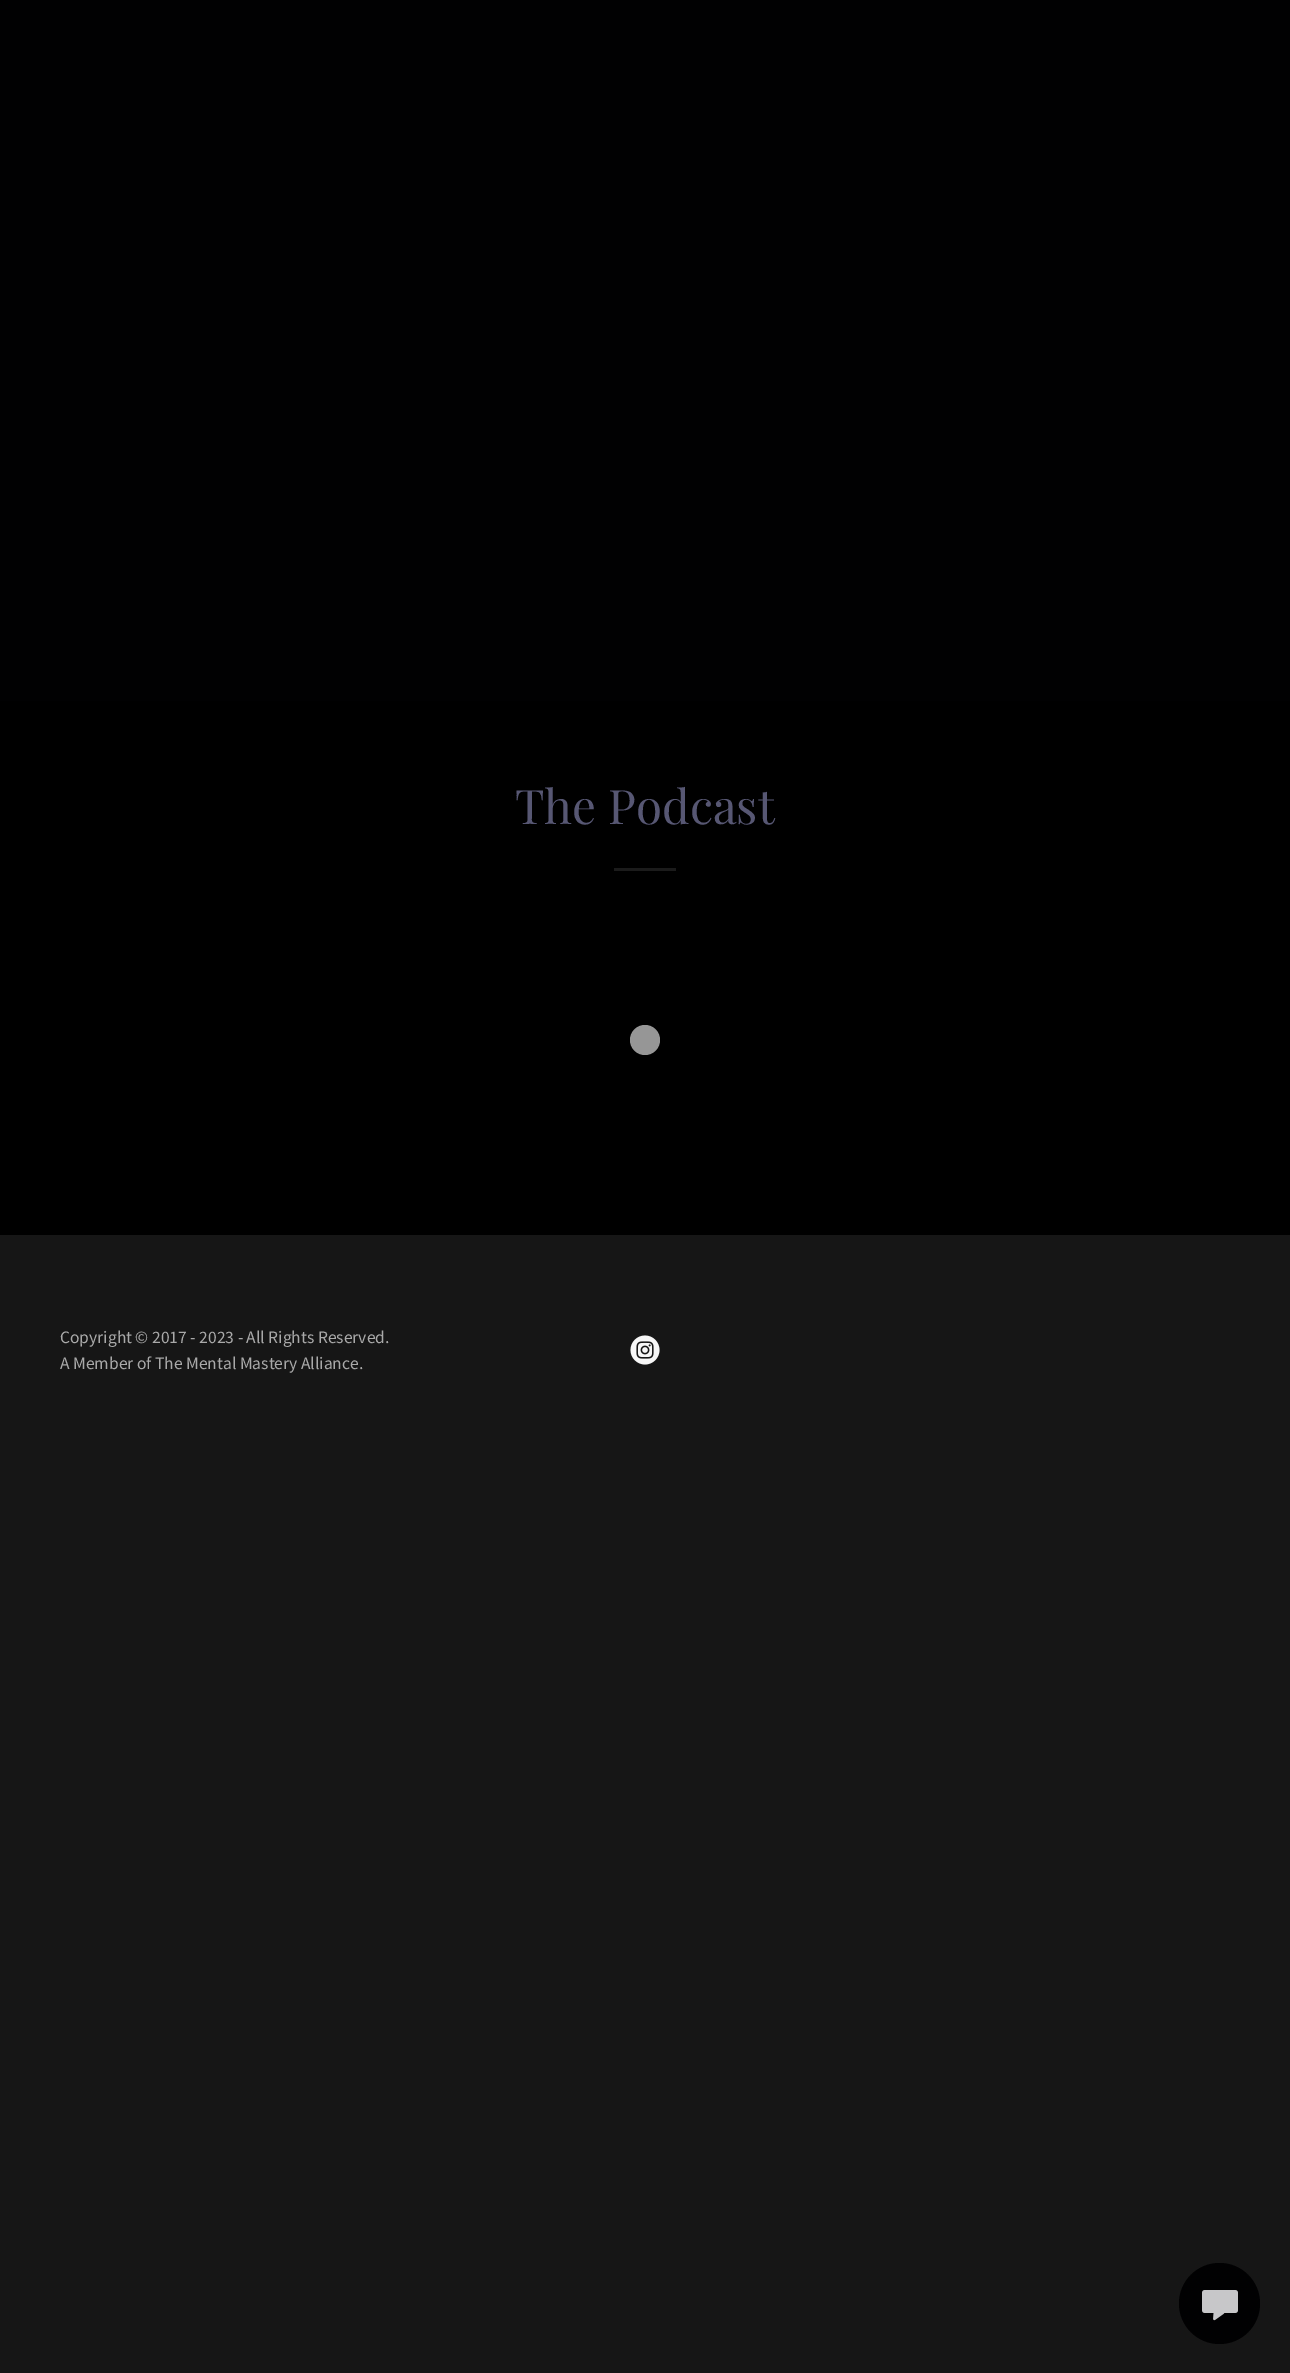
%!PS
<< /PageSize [1290 2373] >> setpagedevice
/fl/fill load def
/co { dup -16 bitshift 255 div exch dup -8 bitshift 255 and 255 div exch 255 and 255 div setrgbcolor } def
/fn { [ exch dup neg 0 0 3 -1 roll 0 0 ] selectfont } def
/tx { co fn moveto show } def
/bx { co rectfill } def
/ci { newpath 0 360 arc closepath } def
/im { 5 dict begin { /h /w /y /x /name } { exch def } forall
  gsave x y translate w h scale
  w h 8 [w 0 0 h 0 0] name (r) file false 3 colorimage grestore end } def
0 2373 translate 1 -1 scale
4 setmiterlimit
0 0 1290 2373 16#161616 bx
0 0 1290 701 16#010102 bx
0 701 1290 534 16#000000 bx
614 868 62 3 16#1B1B1B bx
16#969696 co
645 1040 15 ci fl
(media/1.raw) 630 1335 30 30 im
16#010102 co
1219.5 2303.5 40.5 ci fl
(media/2.raw) 1202 2290 36 31 im
(The Podcast) 515 824 /PlayfairDisplay-Regular 47.5 16#575773 tx
(Copyright © 2017 - 2023 - All Rights Reserved.) 60 1343 /SourceSansPro-Regular 17.5 16#A9A9A9 tx
(A Member of The Mental Mastery Alliance.) 60 1369 /SourceSansPro-Regular 17.5 16#A9A9A9 tx
showpage
